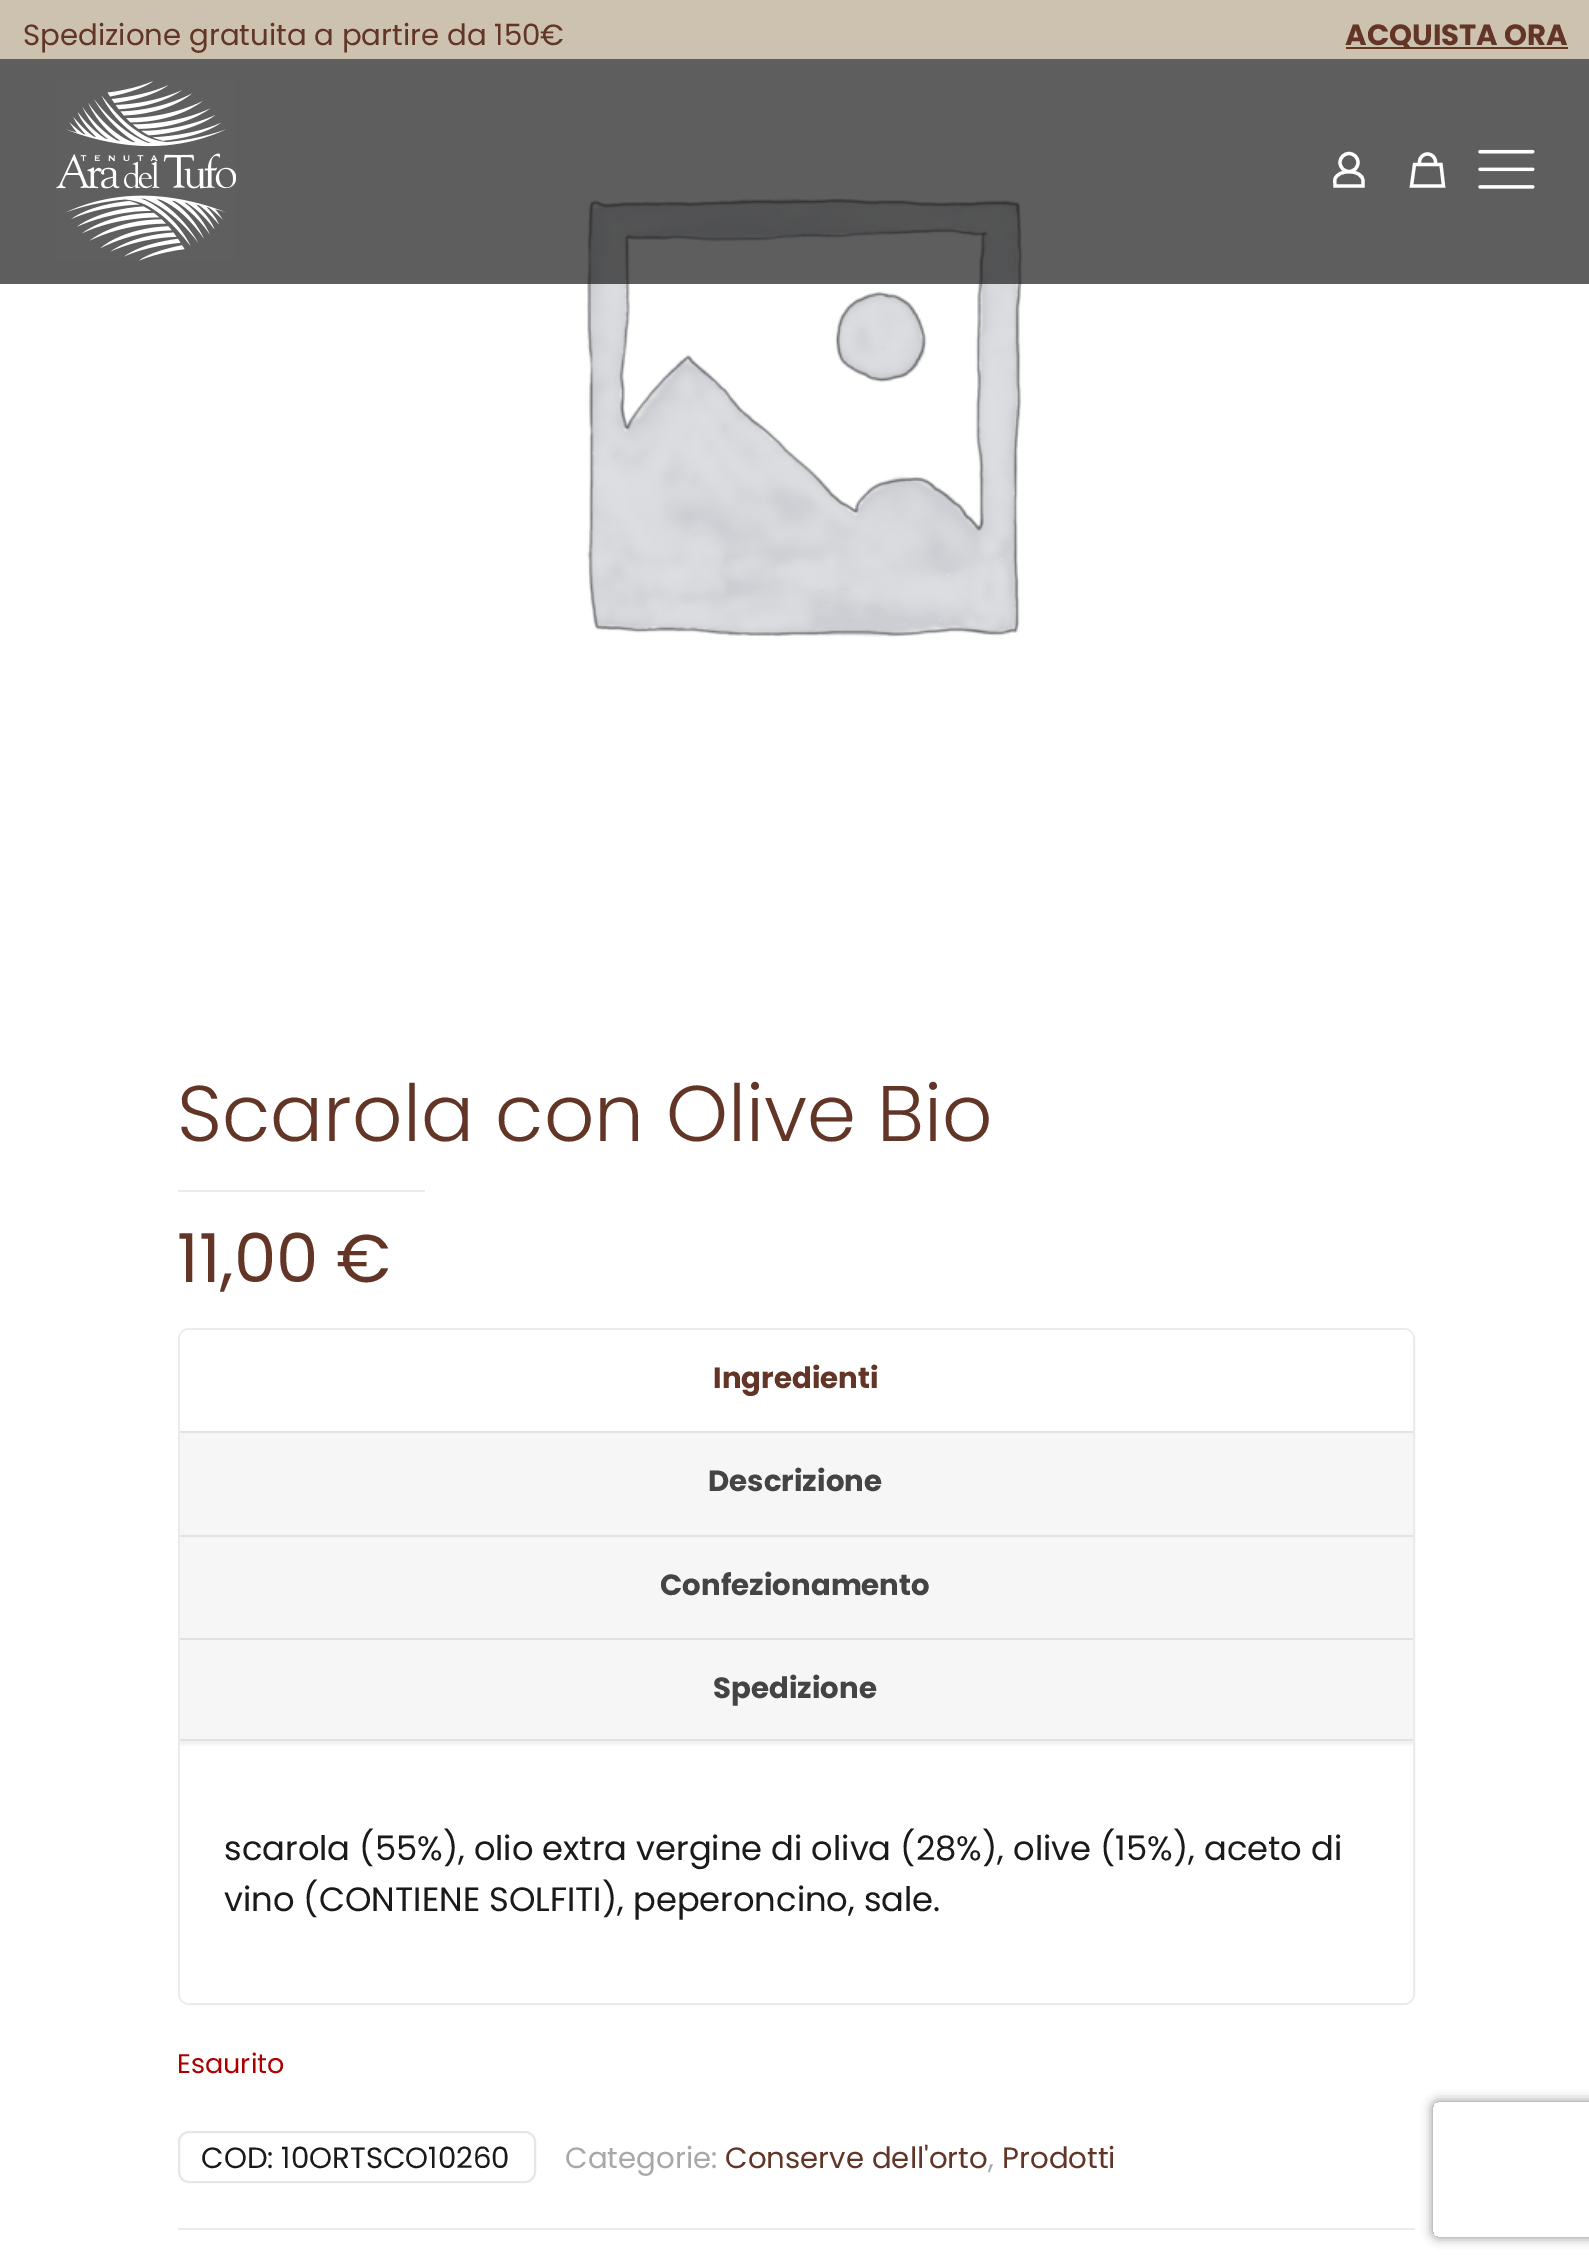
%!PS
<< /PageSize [1589 2267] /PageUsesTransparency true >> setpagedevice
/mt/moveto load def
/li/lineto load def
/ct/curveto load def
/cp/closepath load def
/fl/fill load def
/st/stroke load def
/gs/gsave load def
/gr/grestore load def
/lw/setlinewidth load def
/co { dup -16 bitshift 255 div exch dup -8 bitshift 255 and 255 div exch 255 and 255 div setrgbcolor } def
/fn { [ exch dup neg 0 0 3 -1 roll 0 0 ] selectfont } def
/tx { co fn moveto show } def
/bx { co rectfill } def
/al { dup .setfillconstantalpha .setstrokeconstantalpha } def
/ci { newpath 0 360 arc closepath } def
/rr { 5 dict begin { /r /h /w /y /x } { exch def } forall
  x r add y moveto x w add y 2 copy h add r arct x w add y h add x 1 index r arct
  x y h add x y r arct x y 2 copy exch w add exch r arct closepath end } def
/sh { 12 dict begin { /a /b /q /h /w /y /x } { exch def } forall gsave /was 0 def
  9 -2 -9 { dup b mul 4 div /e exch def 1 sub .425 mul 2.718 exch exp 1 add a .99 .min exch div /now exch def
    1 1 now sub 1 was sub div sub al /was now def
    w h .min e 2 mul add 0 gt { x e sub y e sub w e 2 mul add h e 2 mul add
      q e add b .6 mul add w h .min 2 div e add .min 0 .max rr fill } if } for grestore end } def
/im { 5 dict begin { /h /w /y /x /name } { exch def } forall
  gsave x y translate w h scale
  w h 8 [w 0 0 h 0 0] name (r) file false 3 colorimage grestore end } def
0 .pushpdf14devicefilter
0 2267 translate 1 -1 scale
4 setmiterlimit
0 0 1589 2267 16#FFFFFF bx
0 0 1589 59 16#CDC2B0 bx
1346 47 222 2 16#623527 bx
(media/3.raw) 586 197 437 441 im
0.7 al
0 59 1589 225 16#1A1A1A bx
1 al
(media/1.raw) 56 81 180 180 im
16#FFFFFF co
3.2 lw
1349 162.5 9 ci st
1363 181 mt 1363 186 li 1335 186 li 1335 183.5 1334.5 181 1335 179 ct 1338.5 168.5 1363 169.5 1363 181 ct cp st
1443.5 186 mt 1411.5 186 li 1414.5 164.5 li 1441 164.5 li cp 1419.5 164.5 mt 1419.5 162 li 1419.5 157.5 1423 154 1427.5 154 ct 1432 154 1435.5 157.5 1435.5 162 ct 1435.5 164.5 li st
(media/2.raw) 1478 149 57 40 im
178 1190 247 2 16#EBEBEB bx
2 lw
179 1329 1235 675 10 rr st
(media/4.raw) 180 1330 1233 412 im
180 1739 1233 2 16#E2E2E2 bx
180 1431 1233 2 16#E2E2E2 bx
16#FFFFFF co
189 1330 mt 1404 1330 li 1409 1330 1413 1334 1413 1339 ct 1413 1431 li 180 1431 li 180 1339 li 180 1334 184 1330 189 1330 ct cp fl
180 1535 1233 2 16#E2E2E2 bx
180 1638 1233 2 16#E2E2E2 bx
16#FFFFFF co
180 1742 mt 1413 1742 li 1413 1994 li 1413 1999 1409 2003 1404 2003 ct 189 2003 li 184 2003 180 1999 180 1994 ct cp fl
(media/5.raw) 180 1741 1233 5 im
16#E6E6E6 co
179 2132 356 50 10 rr st
178 2228 1237 2 16#EBEBEB bx
gs
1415 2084 mt 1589 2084 li 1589 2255 li 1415 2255 li cp 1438 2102 mt 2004 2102 li 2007 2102 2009 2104 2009 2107 ct 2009 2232 li 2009 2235 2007 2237 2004 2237 ct 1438 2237 li 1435 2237 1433 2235 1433 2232 ct 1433 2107 li 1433 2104 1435 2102 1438 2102 ct cp eoclip newpath
16#808080 co
1433 2102 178 135 5 5.5 1 sh
gr
(Spedizione gratuita a partire da 150€) 23 45 /Poppins-Regular 29.25 16#623527 tx
(ACQUISTA ORA) 1345 45 /Poppins-Bold 29.25 16#623527 tx
(Scarola con Olive Bio) 177 1141 /Poppins-Light 78.75 16#623527 tx
(11,00 €) 177 1282 /Poppins-Regular 67.5 16#623527 tx
(Ingredienti) 713 1388 /Poppins-Bold 29.25 16#623527 tx
(Descrizione) 708 1491 /Poppins-Bold 29.25 16#444444 tx
(Confezionamento) 660 1595 /Poppins-Bold 29.25 16#444444 tx
(Spedizione) 713 1698 /Poppins-Bold 29.25 16#444444 tx
(scarola \(55%\), olio extra vergine di oliva \(28%\), olive \(15%\), aceto di) 224 1860 /Poppins-Regular 33.75 16#1A1A1A tx
(vino \(CONTIENE SOLFITI\), peperoncino, sale.) 224 1911 /Poppins-Regular 33.75 16#1A1A1A tx
(Esaurito) 177 2073 /Poppins-Regular 27 16#AA0000 tx
(COD: 10ORTSCO10260) 201 2168 /Poppins-Regular 29.25 16#1A1A1A tx
(Categorie:) 565 2168 /Poppins-Regular 29.25 16#A8A8A8 tx
(Conserve dell'orto) 725 2168 /Poppins-Regular 29.25 16#623527 tx
(,) 988 2168 /Poppins-Regular 29.25 16#A8A8A8 tx
(Prodotti) 1002 2168 /Poppins-Regular 29.25 16#623527 tx
.poppdf14devicefilter showpage
